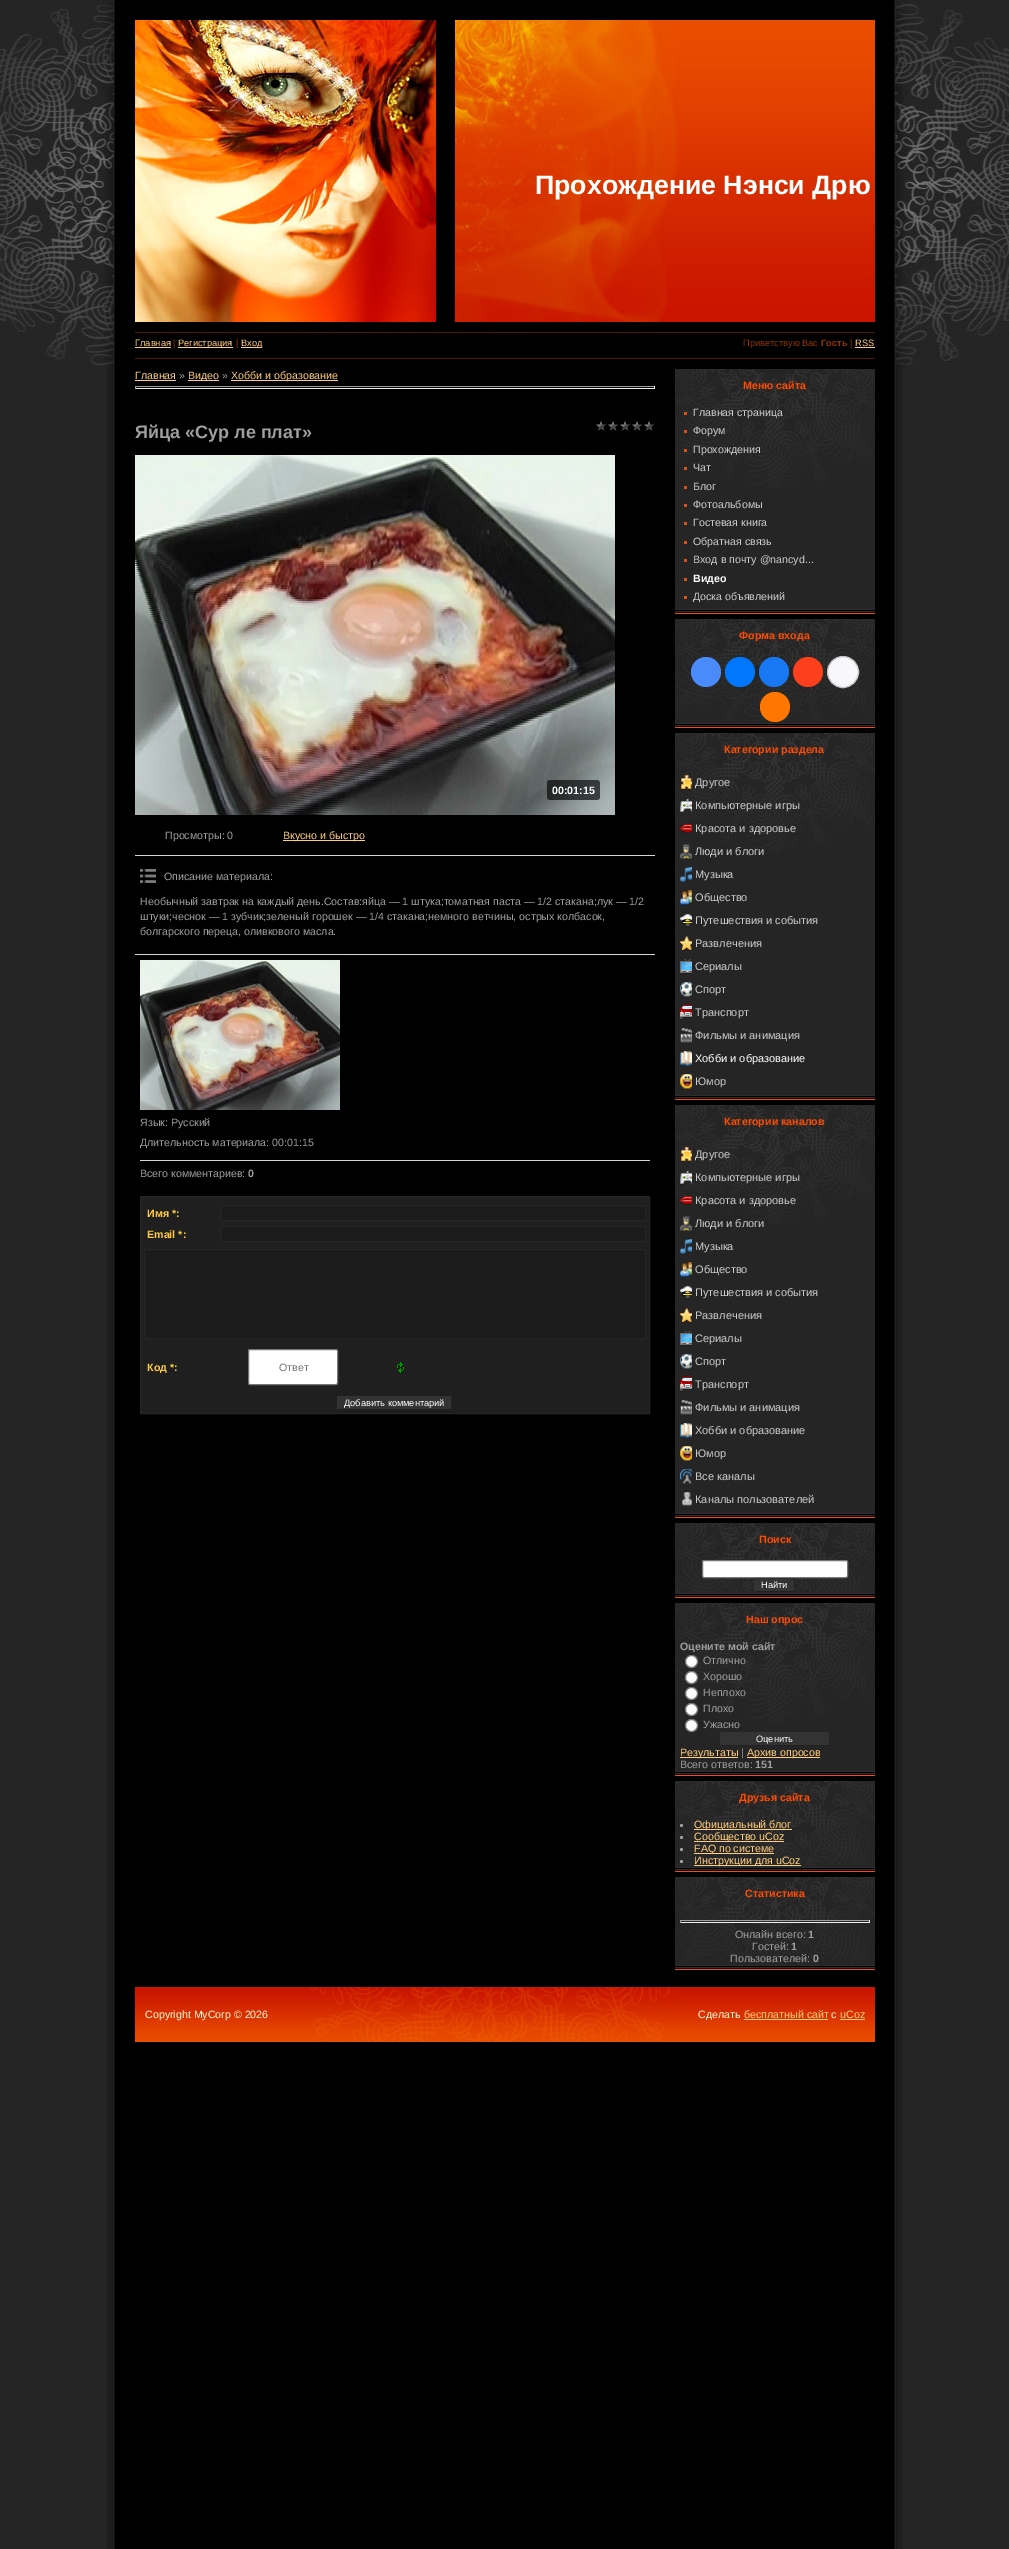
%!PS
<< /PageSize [1009 2549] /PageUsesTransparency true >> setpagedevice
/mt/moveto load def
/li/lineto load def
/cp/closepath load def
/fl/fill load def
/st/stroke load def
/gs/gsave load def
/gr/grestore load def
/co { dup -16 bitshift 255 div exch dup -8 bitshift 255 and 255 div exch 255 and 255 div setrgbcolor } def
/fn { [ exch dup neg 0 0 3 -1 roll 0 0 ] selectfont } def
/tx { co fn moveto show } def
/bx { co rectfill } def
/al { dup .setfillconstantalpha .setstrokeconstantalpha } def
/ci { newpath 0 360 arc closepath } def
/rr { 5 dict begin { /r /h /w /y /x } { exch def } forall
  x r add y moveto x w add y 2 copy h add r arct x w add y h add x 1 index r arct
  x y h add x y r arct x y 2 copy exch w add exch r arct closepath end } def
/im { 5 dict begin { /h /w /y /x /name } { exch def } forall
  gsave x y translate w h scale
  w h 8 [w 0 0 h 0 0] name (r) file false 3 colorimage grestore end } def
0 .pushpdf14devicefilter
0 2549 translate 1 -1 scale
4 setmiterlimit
0 0 1009 2549 16#252525 bx
(media/1.raw) 106 367 797 2182 im
(media/2.raw) 0 0 1009 367 im
(media/3.raw) 135 20 740 302 im
135 332 740 1 16#4D1C00 bx
135 358 740 1 16#4D1C00 bx
135 347 36 1 16#FFCD7F bx
178 347 55 1 16#FFCD7F bx
241 347 21 1 16#FFCD7F bx
855 347 20 1 16#FFCD7F bx
135 380 41 1 16#FFCD7F bx
188 380 31 1 16#FFCD7F bx
231 380 107 1 16#FFCD7F bx
135 386 520 1 16#9F9F9F bx
654 386 1 3 16#EEEEEE bx
135 388 520 1 16#EEEEEE bx
135 386 1 3 16#9F9F9F bx
(media/4.raw) 596 421 59 10 im
(media/5.raw) 135 455 480 360 im
0.63 al
16#000000 co
547 780 53 20 3 rr fl
1 al
283 840 82 1 16#FFCD7F bx
135 855 520 1 16#D6D6D6 bx
(media/6.raw) 140 869 16 14 im
135 954 520 1 16#D6D6D6 bx
(media/7.raw) 140 960 200 150 im
140 1160 510 1 16#D6D6D6 bx
16#1F1F1F co
140.5 1196.5 mt 649.5 1196.5 li 649.5 1413.5 li 140.5 1413.5 li cp gs fl gr
16#252525 co
st
16#1B1B1B co
220.5 1205.5 mt 645.5 1205.5 li 645.5 1220.5 li 220.5 1220.5 li cp gs fl gr
16#252525 co
st
16#1B1B1B co
220.5 1226.5 mt 645.5 1226.5 li 645.5 1241.5 li 220.5 1241.5 li cp gs fl gr
16#252525 co
st
16#1B1B1B co
144.5 1249.5 mt 645.5 1249.5 li 645.5 1338.5 li 144.5 1338.5 li cp gs fl gr
16#252525 co
st
16#FFFFFF co
248.5 1349.5 89 35 1.5 rr gs fl gr
16#767676 co
st
(media/8.raw) 397 1362 7 11 im
338 1396 113 13 16#333333 bx
451 1396 1 14 16#222222 bx
337 1409 115 1 16#222222 bx
337 1396 1 14 16#333333 bx
675 489 200 120 16#252525 bx
(media/9.raw) 675 369 200 120 im
675 613 200 1 16#FF4A00 bx
(media/10.raw) 675 609 200 4 im
684 412 3 3 16#DA5119 bx
684 430 3 3 16#DA5119 bx
684 449 3 3 16#DA5119 bx
684 467 3 3 16#DA5119 bx
684 486 3 3 16#DA5119 bx
684 504 3 3 16#DA5119 bx
684 522 3 3 16#DA5119 bx
684 541 3 3 16#DA5119 bx
684 559 3 3 16#DA5119 bx
684 578 3 3 16#DA5119 bx
684 596 3 3 16#DA5119 bx
(media/11.raw) 675 619 200 103 im
675 727 200 1 16#FF4A00 bx
(media/12.raw) 675 722 200 5 im
16#498BFA co
706 672 15 ci fl
16#0077FF co
740 672 15 ci fl
16#1877F2 co
774 672 15 ci fl
16#FC3F1D co
808 672 15 ci fl
16#F8F8FC co
843 672 15.5 ci gs fl gr
16#C4C4C4 co
st
16#FF7700 co
775 707 15 ci fl
675 853 200 242 16#252525 bx
(media/9.raw) 675 733 200 120 im
675 1099 200 1 16#FF4A00 bx
(media/10.raw) 675 1095 200 4 im
(media/13.raw) 681 775 11 15 im
(media/14.raw) 680 799 12 14 im
(media/15.raw) 680 824 12 9 im
(media/16.raw) 680 844 12 15 im
(media/17.raw) 680 867 12 15 im
(media/18.raw) 680 890 12 15 im
(media/19.raw) 680 914 12 13 im
(media/20.raw) 680 936 12 15 im
(media/21.raw) 680 959 12 15 im
(media/22.raw) 680 982 12 15 im
(media/23.raw) 680 1005 12 15 im
(media/24.raw) 680 1028 12 15 im
(media/25.raw) 680 1051 12 15 im
(media/26.raw) 680 1074 12 15 im
675 1225 200 288 16#252525 bx
(media/9.raw) 675 1105 200 120 im
675 1517 200 1 16#FF4A00 bx
(media/10.raw) 675 1513 200 4 im
(media/13.raw) 681 1147 11 15 im
(media/14.raw) 680 1171 12 14 im
(media/15.raw) 680 1196 12 9 im
(media/16.raw) 680 1216 12 15 im
(media/17.raw) 680 1239 12 15 im
(media/18.raw) 680 1262 12 15 im
(media/19.raw) 680 1286 12 13 im
(media/20.raw) 680 1308 12 15 im
(media/21.raw) 680 1331 12 15 im
(media/22.raw) 680 1354 12 15 im
(media/23.raw) 680 1377 12 15 im
(media/24.raw) 680 1400 12 15 im
(media/25.raw) 680 1423 12 15 im
(media/26.raw) 680 1446 12 15 im
(media/27.raw) 680 1469 12 15 im
(media/28.raw) 681 1492 11 14 im
(media/29.raw) 675 1523 200 69 im
675 1597 200 1 16#FF4A00 bx
(media/12.raw) 675 1592 200 5 im
16#FFFFFF co
702.5 1560.5 145 17 1.5 rr gs fl gr
16#767676 co
st
755 1578 39 13 16#333333 bx
794 1578 1 14 16#222222 bx
754 1591 41 1 16#222222 bx
754 1578 1 14 16#333333 bx
675 1723 200 48 16#252525 bx
(media/9.raw) 675 1603 200 120 im
675 1775 200 1 16#FF4A00 bx
(media/10.raw) 675 1771 200 4 im
16#FFFFFF co
691.5 1661.5 6 ci gs fl gr
16#767676 co
st
16#FFFFFF co
691.5 1677.5 6 ci gs fl gr
16#767676 co
st
16#FFFFFF co
691.5 1693.5 6 ci gs fl gr
16#767676 co
st
16#FFFFFF co
691.5 1709.5 6 ci gs fl gr
16#767676 co
st
16#FFFFFF co
691.5 1725.5 6 ci gs fl gr
16#767676 co
st
721 1732 108 13 16#333333 bx
829 1732 1 14 16#222222 bx
720 1745 110 1 16#222222 bx
720 1732 1 14 16#333333 bx
680 1757 58 1 16#FFCD7F bx
747 1757 73 1 16#FFCD7F bx
(media/30.raw) 675 1781 200 85 im
675 1871 200 1 16#FF4A00 bx
(media/12.raw) 675 1866 200 5 im
16#9F9F9F co
681.5 1825.5 1.5 ci fl
694 1829 98 1 16#FFCD7F bx
16#9F9F9F co
681.5 1837.5 1.5 ci fl
694 1841 90 1 16#FFCD7F bx
16#9F9F9F co
681.5 1849.5 1.5 ci fl
694 1853 80 1 16#FFCD7F bx
16#9F9F9F co
681.5 1861.5 1.5 ci fl
694 1865 107 1 16#FFCD7F bx
(media/31.raw) 675 1877 200 87 im
675 1969 200 1 16#FF4A00 bx
(media/12.raw) 675 1964 200 5 im
680 1920 190 1 16#9F9F9F bx
869 1920 1 3 16#EEEEEE bx
680 1922 190 1 16#EEEEEE bx
680 1920 1 3 16#9F9F9F bx
(media/32.raw) 135 1987 740 55 im
744 2019 84 1 16#FFCD7F bx
840 2019 25 1 16#FFCD7F bx
(Прохождение Нэнси Дрю) 535 194 /LiberationSans-Bold 26.7 16#FFFFFF tx
(Главная) 135 346 /LiberationSans-Regular 9.25 16#FFCD7F tx
(|) 173 346 /LiberationSans-Regular 9.25 16#903400 tx
(Регистрация) 178 346 /LiberationSans-Regular 9.25 16#FFCD7F tx
(|) 236 346 /LiberationSans-Regular 9.25 16#903400 tx
(Вход) 241 346 /LiberationSans-Regular 9.25 16#FFCD7F tx
(Приветствую Вас) 743 346 /LiberationSans-Regular 9.25 16#903400 tx
(Гость) 821 346 /LiberationSans-Bold 9.25 16#903400 tx
(|) 850 346 /LiberationSans-Regular 9.25 16#903400 tx
(RSS) 855 346 /LiberationSans-Regular 9.25 16#FFCD7F tx
(Главная) 135 379 /LiberationSans-Regular 10.65 16#FFCD7F tx
(») 179 379 /LiberationSans-Regular 10.65 16#9F9F9F tx
(Видео) 188 379 /LiberationSans-Regular 10.65 16#FFCD7F tx
(») 222 379 /LiberationSans-Regular 10.65 16#9F9F9F tx
(Хобби и образование) 231 379 /LiberationSans-Regular 10.65 16#FFCD7F tx
(Яйца «Сур ле плат») 135 438 /LiberationSans-Bold 18 16#9F9F9F tx
(00:01:15) 552 794 /LiberationSans-Bold 10.65 16#FFFFFF tx
(Просмотры: 0) 165 839 /LiberationSans-Regular 10.65 16#9F9F9F tx
(Вкусно и быстро) 283 839 /LiberationSans-Regular 10.65 16#FFCD7F tx
(Описание материала:) 164 880 /LiberationSans-Regular 10.65 16#9F9F9F tx
(Необычный завтрак на каждый день.Состав:яйца — 1 штука;томатная паста — 1/2 стакана;лук — 1/2) 140 905 /LiberationSans-Regular 10.65 16#9F9F9F tx
(штуки;чеснок — 1 зубчик;зеленый горошек — 1/4 стакана;немного ветчины, острых колбасок,) 140 920 /LiberationSans-Regular 10.65 16#9F9F9F tx
(болгарского переца, оливкового масла.) 140 935 /LiberationSans-Regular 10.65 16#9F9F9F tx
(Язык: Русский) 140 1126 /LiberationSans-Regular 10.65 16#9F9F9F tx
(Длительность материала: 00:01:15) 140 1146 /LiberationSans-Regular 10.65 16#9F9F9F tx
(Всего комментариев:) 140 1177 /LiberationSans-Regular 10.65 16#9F9F9F tx
(0) 248 1177 /LiberationSans-Bold 10.65 16#9F9F9F tx
(Имя *:) 147 1217 /LiberationSans-Bold 10.65 16#FFCA42 tx
(Email *:) 147 1238 /LiberationSans-Bold 10.65 16#FFCA42 tx
(Код *:) 147 1371 /LiberationSans-Bold 10.65 16#FFCA42 tx
(Ответ) 279 1371 /LiberationSans-Regular 10.65 16#757575 tx
(Добавить комментарий) 344 1406 /LiberationSans-Regular 9.25 16#FFFFFF tx
(Меню сайта) 743 389 /LiberationSans-Bold 10.65 16#FF4A00 tx
(Главная страница) 693 416 /LiberationSans-Regular 10.65 16#CCCCCC tx
(Форум) 693 434 /LiberationSans-Regular 10.65 16#CCCCCC tx
(Прохождения) 693 453 /LiberationSans-Regular 10.65 16#CCCCCC tx
(Чат) 693 471 /LiberationSans-Regular 10.65 16#CCCCCC tx
(Блог) 693 490 /LiberationSans-Regular 10.65 16#CCCCCC tx
(Фотоальбомы) 693 508 /LiberationSans-Regular 10.65 16#CCCCCC tx
(Гостевая книга) 693 526 /LiberationSans-Regular 10.65 16#CCCCCC tx
(Обратная связь) 693 545 /LiberationSans-Regular 10.65 16#CCCCCC tx
(Вход в почту @nancyd...) 693 563 /LiberationSans-Regular 10.65 16#CCCCCC tx
(Видео) 693 582 /LiberationSans-Bold 10.65 16#FFFFFF tx
(Доска объявлений) 693 600 /LiberationSans-Regular 10.65 16#CCCCCC tx
(Форма входа) 739 639 /LiberationSans-Bold 10.65 16#FF4A00 tx
(Категории раздела) 724 753 /LiberationSans-Bold 10.65 16#FF4A00 tx
(Другое) 695 786 /LiberationSans-Regular 11 16#CCCCCC tx
(Компьютерные игры) 695 809 /LiberationSans-Regular 11 16#CCCCCC tx
(Красота и здоровье) 695 832 /LiberationSans-Regular 11 16#CCCCCC tx
(Люди и блоги) 695 855 /LiberationSans-Regular 11 16#CCCCCC tx
(Музыка) 695 878 /LiberationSans-Regular 11 16#CCCCCC tx
(Общество) 695 901 /LiberationSans-Regular 11 16#CCCCCC tx
(Путешествия и события) 695 924 /LiberationSans-Regular 11 16#CCCCCC tx
(Развлечения) 695 947 /LiberationSans-Regular 11 16#CCCCCC tx
(Сериалы) 695 970 /LiberationSans-Regular 11 16#CCCCCC tx
(Спорт) 695 993 /LiberationSans-Regular 11 16#CCCCCC tx
(Транспорт) 695 1016 /LiberationSans-Regular 11 16#CCCCCC tx
(Фильмы и анимация) 695 1039 /LiberationSans-Regular 11 16#CCCCCC tx
(Хобби и образование) 695 1062 /LiberationSans-Regular 11 16#FFFFFF tx
(Юмор) 695 1085 /LiberationSans-Regular 11 16#CCCCCC tx
(Категории каналов) 724 1125 /LiberationSans-Bold 10.65 16#FF4A00 tx
(Другое) 695 1158 /LiberationSans-Regular 11 16#CCCCCC tx
(Компьютерные игры) 695 1181 /LiberationSans-Regular 11 16#CCCCCC tx
(Красота и здоровье) 695 1204 /LiberationSans-Regular 11 16#CCCCCC tx
(Люди и блоги) 695 1227 /LiberationSans-Regular 11 16#CCCCCC tx
(Музыка) 695 1250 /LiberationSans-Regular 11 16#CCCCCC tx
(Общество) 695 1273 /LiberationSans-Regular 11 16#CCCCCC tx
(Путешествия и события) 695 1296 /LiberationSans-Regular 11 16#CCCCCC tx
(Развлечения) 695 1319 /LiberationSans-Regular 11 16#CCCCCC tx
(Сериалы) 695 1342 /LiberationSans-Regular 11 16#CCCCCC tx
(Спорт) 695 1365 /LiberationSans-Regular 11 16#CCCCCC tx
(Транспорт) 695 1388 /LiberationSans-Regular 11 16#CCCCCC tx
(Фильмы и анимация) 695 1411 /LiberationSans-Regular 11 16#CCCCCC tx
(Хобби и образование) 695 1434 /LiberationSans-Regular 11 16#CCCCCC tx
(Юмор) 695 1457 /LiberationSans-Regular 11 16#CCCCCC tx
(Все каналы) 695 1480 /LiberationSans-Regular 11 16#CCCCCC tx
(Каналы пользователей) 695 1503 /LiberationSans-Regular 11 16#CCCCCC tx
(Поиск) 759 1543 /LiberationSans-Bold 10.65 16#FF4A00 tx
(Найти) 761 1588 /LiberationSans-Regular 9.25 16#FFFFFF tx
(Наш опрос) 746 1623 /LiberationSans-Bold 10.65 16#FF4A00 tx
(Оцените мой сайт) 680 1650 /LiberationSans-Bold 10.65 16#9F9F9F tx
(Отлично) 703 1664 /LiberationSans-Regular 10.65 16#9F9F9F tx
(Хорошо) 703 1680 /LiberationSans-Regular 10.65 16#9F9F9F tx
(Неплохо) 703 1696 /LiberationSans-Regular 10.65 16#9F9F9F tx
(Плохо) 703 1712 /LiberationSans-Regular 10.65 16#9F9F9F tx
(Ужасно) 703 1728 /LiberationSans-Regular 10.65 16#9F9F9F tx
(Оценить) 756 1742 /LiberationSans-Regular 9.25 16#FFFFFF tx
(Результаты) 680 1756 /LiberationSans-Regular 10.65 16#FFCD7F tx
(|) 741 1756 /LiberationSans-Regular 10.65 16#9F9F9F tx
(Архив опросов) 747 1756 /LiberationSans-Regular 10.65 16#FFCD7F tx
(Всего ответов:) 680 1768 /LiberationSans-Regular 10.65 16#9F9F9F tx
(151) 755 1768 /LiberationSans-Bold 10.65 16#9F9F9F tx
(Друзья сайта) 739 1801 /LiberationSans-Bold 10.65 16#FF4A00 tx
(Официальный блог) 694 1828 /LiberationSans-Regular 10.65 16#FFCD7F tx
(Сообщество uCoz) 694 1840 /LiberationSans-Regular 10.65 16#FFCD7F tx
(FAQ по системе) 694 1852 /LiberationSans-Regular 10.65 16#FFCD7F tx
(Инструкции для uCoz) 694 1864 /LiberationSans-Regular 10.65 16#FFCD7F tx
(Статистика) 745 1897 /LiberationSans-Bold 10.65 16#FF4A00 tx
(Онлайн всего:) 735 1938 /LiberationSans-Regular 10.65 16#9F9F9F tx
(1) 808 1938 /LiberationSans-Bold 10.65 16#9F9F9F tx
(Гостей:) 752 1950 /LiberationSans-Regular 10.65 16#9F9F9F tx
(1) 791 1950 /LiberationSans-Bold 10.65 16#9F9F9F tx
(Пользователей:) 730 1962 /LiberationSans-Regular 10.65 16#9F9F9F tx
(0) 813 1962 /LiberationSans-Bold 10.65 16#9F9F9F tx
(Copyright MyCorp © 2026) 145 2018 /LiberationSans-Regular 10.65 16#FFFBD7 tx
(Сделать) 698 2018 /LiberationSans-Regular 10.65 16#FFFBD7 tx
(бесплатный сайт) 744 2018 /LiberationSans-Regular 10.65 16#FFCD7F tx
(с) 831 2018 /LiberationSans-Regular 10.65 16#FFFBD7 tx
(uCoz) 840 2018 /LiberationSans-Regular 10.65 16#FFCD7F tx
.poppdf14devicefilter showpage
